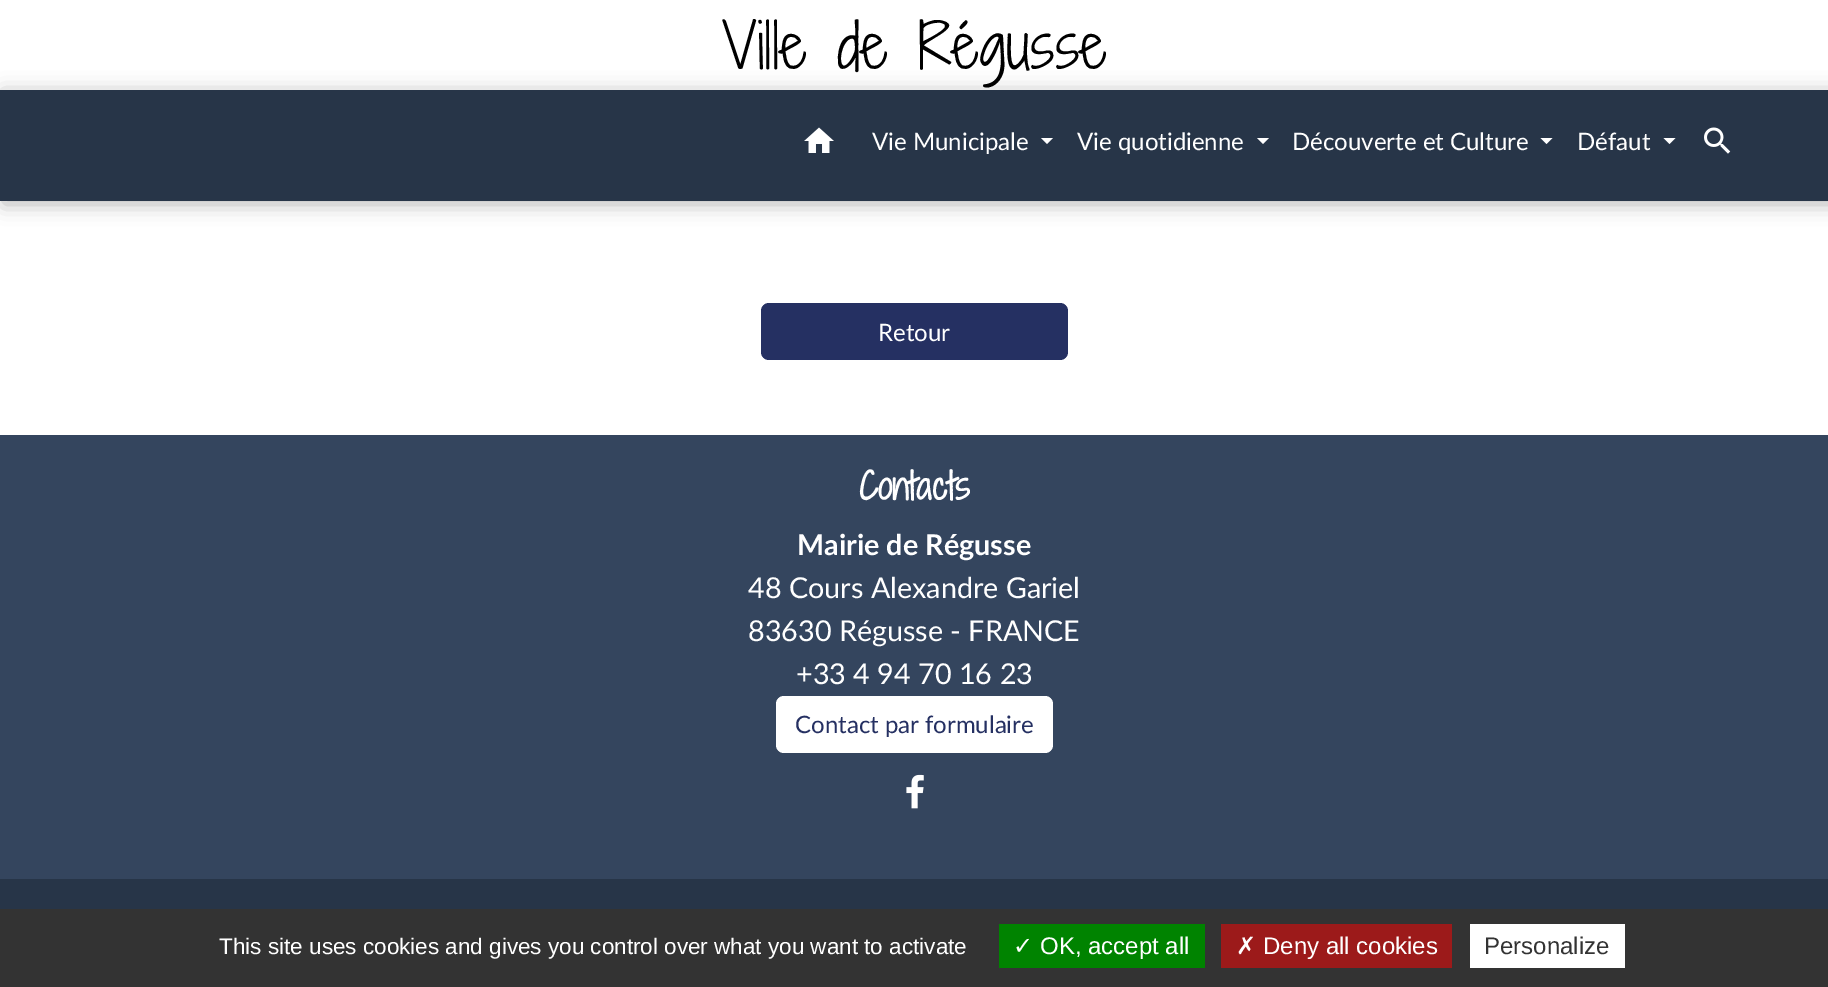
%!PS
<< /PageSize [1828 987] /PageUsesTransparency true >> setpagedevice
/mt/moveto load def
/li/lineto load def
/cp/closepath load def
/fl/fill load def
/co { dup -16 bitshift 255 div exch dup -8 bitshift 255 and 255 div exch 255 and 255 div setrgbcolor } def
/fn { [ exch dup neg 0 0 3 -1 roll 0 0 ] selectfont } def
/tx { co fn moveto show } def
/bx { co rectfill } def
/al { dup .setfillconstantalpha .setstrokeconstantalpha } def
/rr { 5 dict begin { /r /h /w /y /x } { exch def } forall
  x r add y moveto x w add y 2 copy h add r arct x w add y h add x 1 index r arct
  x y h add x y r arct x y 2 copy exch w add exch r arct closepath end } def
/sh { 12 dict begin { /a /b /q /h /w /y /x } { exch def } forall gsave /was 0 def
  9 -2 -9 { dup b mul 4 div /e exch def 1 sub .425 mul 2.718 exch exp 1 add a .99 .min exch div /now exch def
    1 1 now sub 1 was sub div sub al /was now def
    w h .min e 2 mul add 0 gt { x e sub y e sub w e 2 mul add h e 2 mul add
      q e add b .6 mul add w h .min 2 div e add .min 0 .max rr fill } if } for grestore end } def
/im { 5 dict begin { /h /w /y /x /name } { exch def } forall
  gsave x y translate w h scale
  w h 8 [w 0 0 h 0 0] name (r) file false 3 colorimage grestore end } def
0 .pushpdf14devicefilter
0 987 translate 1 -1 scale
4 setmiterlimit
0 0 1828 987 16#FFFFFF bx
16#000000 co
3 93 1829 111 0 10 .3 sh
0 90 1828 111 16#273548 bx
(media/1.raw) 804 127 30 26 im
16#FFFFFF co
1041 138 mt 1053 138 li 1047 144 li cp fl
1257 138 mt 1269 138 li 1263 144 li cp fl
1540.5 138 mt 1552.5 138 li 1546.5 144 li cp fl
1663.5 138 mt 1675.5 138 li 1669.5 144 li cp fl
(media/2.raw) 1704 127 27 27 im
16#253062 co
761 303 307 57 8 rr fl
0 435 1828 444 16#34455E bx
16#FFFFFF co
776 696 277 57 8 rr fl
(media/3.raw) 906 774 18 35 im
0 879 1828 30 16#273548 bx
0 909 1828 78 16#333333 bx
999 924 206 44 16#008300 bx
1221 924 231 44 16#9C1A1A bx
1470 924 155 44 16#FFFFFF bx
(Ville de Régusse) 722 69 /ShadowsIntoLightTwo-Light 60 16#000000 tx
(Vie Municipale) 872 150 /Lato-Regular 24 16#FFFFFF tx
(Vie quotidienne) 1077 150 /Lato-Regular 24 16#FFFFFF tx
(Découverte et Culture) 1292 150 /Lato-Regular 24 16#FFFFFF tx
(Défaut) 1577 150 /Lato-Regular 24 16#FFFFFF tx
(Retour) 878 341 /Lato-Regular 24 16#FFFFFF tx
(Contacts) 859 500 /ShadowsIntoLightTwo-Bold 36 16#FFFFFF tx
(Mairie de Régusse) 797 555 /Lato-Bold 28.75 16#FFFFFF tx
(48 Cours Alexandre Gariel) 748 598 /Lato-Regular 28.75 16#FFFFFF tx
(83630 Régusse - FRANCE) 748 641 /Lato-Regular 28.75 16#FFFFFF tx
(+33 4 94 70 16 23) 796 684 /Lato-Regular 28.75 16#FFFFFF tx
(Contact par formulaire) 795 733 /Lato-Regular 24 16#253062 tx
(This site uses cookies and gives you control over what you want to activate) 219 954 /LiberationSans-Regular 22.5 16#FFFFFF tx
(✓) 1013 954 /DejaVuSans-Regular 24 16#FFFFFF tx
(OK, accept all) 1040 954 /LiberationSans-Regular 24 16#FFFFFF tx
(✗) 1236 954 /DejaVuSans-Regular 24 16#FFFFFF tx
(Deny all cookies) 1263 954 /LiberationSans-Regular 24 16#FFFFFF tx
(Personalize) 1484 954 /LiberationSans-Regular 24 16#333333 tx
.poppdf14devicefilter showpage
